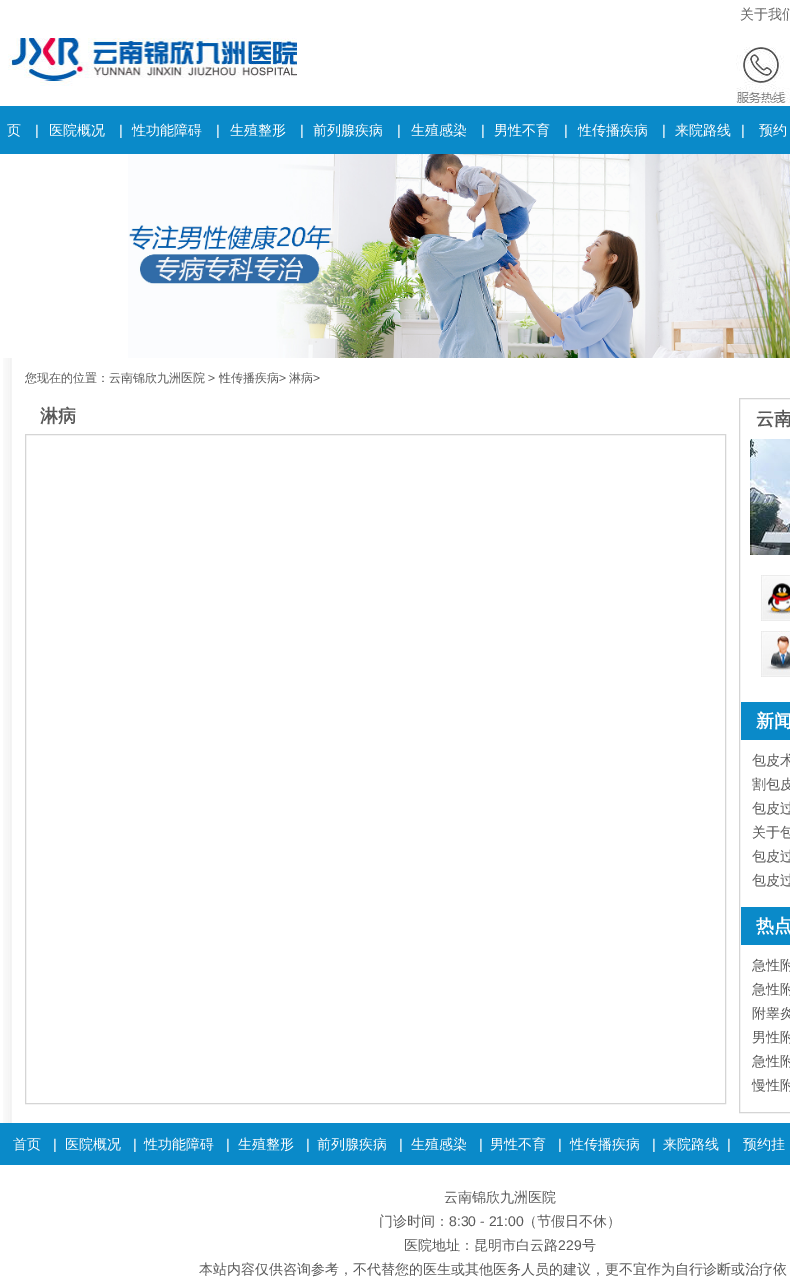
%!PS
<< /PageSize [790 1285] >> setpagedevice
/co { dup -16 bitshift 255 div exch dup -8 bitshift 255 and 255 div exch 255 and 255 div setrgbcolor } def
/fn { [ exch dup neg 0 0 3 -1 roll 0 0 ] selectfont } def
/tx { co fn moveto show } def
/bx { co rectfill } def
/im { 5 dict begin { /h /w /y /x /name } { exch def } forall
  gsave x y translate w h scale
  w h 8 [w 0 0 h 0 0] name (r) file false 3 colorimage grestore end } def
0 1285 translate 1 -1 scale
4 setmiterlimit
0 0 790 1285 16#FFFFFF bx
(media/1.raw) 736 47 54 56 im
(media/2.raw) 8 38 289 48 im
0 106 790 48 16#0A8AC9 bx
(media/3.raw) 128 154 662 204 im
(media/4.raw) 3 358 9 765 im
16#D5D5D5 co
25.5 434.5 700 669 rectstroke
739.5 398.5 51 714 rectstroke
(media/5.raw) 750 439 40 116 im
(media/6.raw) 761 575 29 46 im
(media/7.raw) 761 631 29 46 im
741 702 49 38 16#0A8AC9 bx
741 907 49 38 16#0A8AC9 bx
0 1123 790 42 16#0A8AC9 bx
(关于我们) 740 19 /WenQuanYiZenHei-Medium 14 16#696969 tx
(页) 7 135 /WenQuanYiZenHei-Medium 14 16#FFFFFF tx
(|) 35 135 /LiberationSans-Regular 14 16#FFFFFF tx
(医院概况) 49 135 /WenQuanYiZenHei-Medium 14 16#FFFFFF tx
(|) 119 135 /LiberationSans-Regular 14 16#FFFFFF tx
(性功能障碍) 132 135 /WenQuanYiZenHei-Medium 14 16#FFFFFF tx
(|) 216 135 /LiberationSans-Regular 14 16#FFFFFF tx
(生殖整形) 230 135 /WenQuanYiZenHei-Medium 14 16#FFFFFF tx
(|) 300 135 /LiberationSans-Regular 14 16#FFFFFF tx
(前列腺疾病) 313 135 /WenQuanYiZenHei-Medium 14 16#FFFFFF tx
(|) 397 135 /LiberationSans-Regular 14 16#FFFFFF tx
(生殖感染) 411 135 /WenQuanYiZenHei-Medium 14 16#FFFFFF tx
(|) 481 135 /LiberationSans-Regular 14 16#FFFFFF tx
(男性不育) 494 135 /WenQuanYiZenHei-Medium 14 16#FFFFFF tx
(|) 564 135 /LiberationSans-Regular 14 16#FFFFFF tx
(性传播疾病) 578 135 /WenQuanYiZenHei-Medium 14 16#FFFFFF tx
(|) 662 135 /LiberationSans-Regular 14 16#FFFFFF tx
(来院路线) 675 135 /WenQuanYiZenHei-Medium 14 16#FFFFFF tx
(|) 741 135 /LiberationSans-Regular 14 16#FFFFFF tx
(预约) 759 135 /WenQuanYiZenHei-Medium 14 16#FFFFFF tx
(您现在的位置：云南锦欣九洲医院) 25 382 /WenQuanYiZenHei-Medium 12 16#595959 tx
(>) 208 382 /LiberationSans-Regular 12 16#595959 tx
(性传播疾病) 219 382 /WenQuanYiZenHei-Medium 12 16#595959 tx
(>) 279 382 /LiberationSans-Regular 12 16#595959 tx
(淋病) 289 382 /WenQuanYiZenHei-Medium 12 16#595959 tx
(>) 313 382 /LiberationSans-Regular 12 16#595959 tx
(淋病) 40 422 /WenQuanYiZenHei-Bold 18 16#595959 tx
(云南) 756 425 /WenQuanYiZenHei-Bold 18 16#595959 tx
(新闻) 756 727 /WenQuanYiZenHei-Bold 18 16#FFFFFF tx
(包皮术) 752 765 /WenQuanYiZenHei-Medium 14 16#595959 tx
(割包皮) 752 789 /WenQuanYiZenHei-Medium 14 16#595959 tx
(包皮过) 752 813 /WenQuanYiZenHei-Medium 14 16#595959 tx
(关于包) 752 837 /WenQuanYiZenHei-Medium 14 16#595959 tx
(包皮过) 752 861 /WenQuanYiZenHei-Medium 14 16#595959 tx
(包皮过) 752 885 /WenQuanYiZenHei-Medium 14 16#595959 tx
(热点) 756 932 /WenQuanYiZenHei-Bold 18 16#FFFFFF tx
(急性附) 752 970 /WenQuanYiZenHei-Medium 14 16#595959 tx
(急性附) 752 994 /WenQuanYiZenHei-Medium 14 16#595959 tx
(附睾炎) 752 1018 /WenQuanYiZenHei-Medium 14 16#595959 tx
(男性附) 752 1042 /WenQuanYiZenHei-Medium 14 16#595959 tx
(急性附) 752 1066 /WenQuanYiZenHei-Medium 14 16#595959 tx
(慢性附) 752 1090 /WenQuanYiZenHei-Medium 14 16#595959 tx
(首页) 13 1149 /WenQuanYiZenHei-Medium 14 16#FFFFFF tx
(|) 53 1149 /LiberationSans-Regular 14 16#FFFFFF tx
(医院概况) 65 1149 /WenQuanYiZenHei-Medium 14 16#FFFFFF tx
(|) 133 1149 /LiberationSans-Regular 14 16#FFFFFF tx
(性功能障碍) 144 1149 /WenQuanYiZenHei-Medium 14 16#FFFFFF tx
(|) 226 1149 /LiberationSans-Regular 14 16#FFFFFF tx
(生殖整形) 238 1149 /WenQuanYiZenHei-Medium 14 16#FFFFFF tx
(|) 306 1149 /LiberationSans-Regular 14 16#FFFFFF tx
(前列腺疾病) 317 1149 /WenQuanYiZenHei-Medium 14 16#FFFFFF tx
(|) 399 1149 /LiberationSans-Regular 14 16#FFFFFF tx
(生殖感染) 411 1149 /WenQuanYiZenHei-Medium 14 16#FFFFFF tx
(|) 479 1149 /LiberationSans-Regular 14 16#FFFFFF tx
(男性不育) 490 1149 /WenQuanYiZenHei-Medium 14 16#FFFFFF tx
(|) 558 1149 /LiberationSans-Regular 14 16#FFFFFF tx
(性传播疾病) 570 1149 /WenQuanYiZenHei-Medium 14 16#FFFFFF tx
(|) 652 1149 /LiberationSans-Regular 14 16#FFFFFF tx
(来院路线) 663 1149 /WenQuanYiZenHei-Medium 14 16#FFFFFF tx
(|) 727 1149 /LiberationSans-Regular 14 16#FFFFFF tx
(预约挂) 743 1149 /WenQuanYiZenHei-Medium 14 16#FFFFFF tx
(云南锦欣九洲医院) 444 1202 /WenQuanYiZenHei-Medium 14 16#595959 tx
(门诊时间：) 379 1226 /WenQuanYiZenHei-Medium 14 16#595959 tx
(8:30 - 21:00) 449 1226 /LiberationSans-Regular 14 16#595959 tx
(（节假日不休）) 523 1226 /WenQuanYiZenHei-Medium 14 16#595959 tx
(医院地址：昆明市白云路) 404 1250 /WenQuanYiZenHei-Medium 14 16#595959 tx
(229) 558 1250 /LiberationSans-Regular 14 16#595959 tx
(号) 582 1250 /WenQuanYiZenHei-Medium 14 16#595959 tx
(本站内容仅供咨询参考，不代替您的医生或其他医务人员的建议，更不宜作为自行诊断或治疗依) 199 1274 /WenQuanYiZenHei-Medium 14 16#595959 tx
showpage
